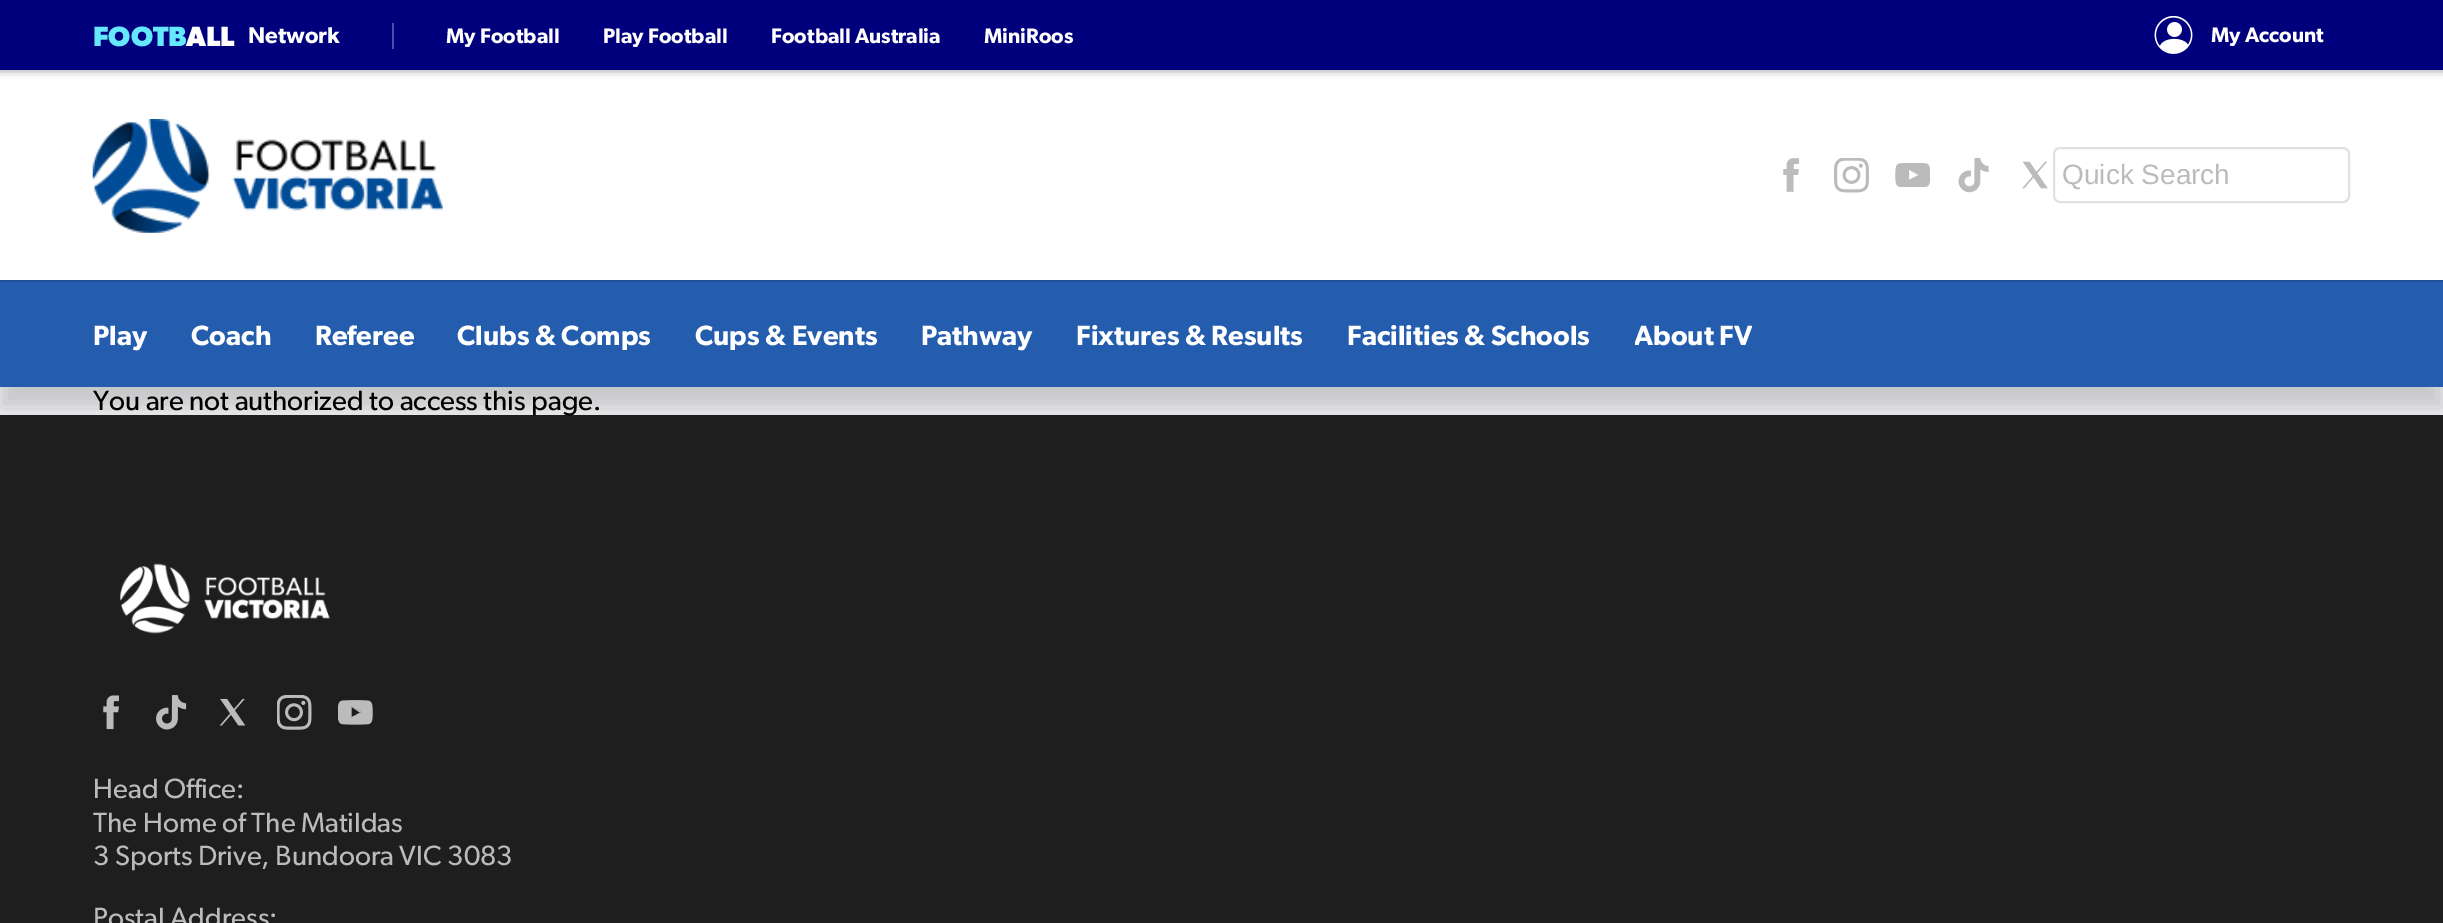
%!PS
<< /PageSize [2443 923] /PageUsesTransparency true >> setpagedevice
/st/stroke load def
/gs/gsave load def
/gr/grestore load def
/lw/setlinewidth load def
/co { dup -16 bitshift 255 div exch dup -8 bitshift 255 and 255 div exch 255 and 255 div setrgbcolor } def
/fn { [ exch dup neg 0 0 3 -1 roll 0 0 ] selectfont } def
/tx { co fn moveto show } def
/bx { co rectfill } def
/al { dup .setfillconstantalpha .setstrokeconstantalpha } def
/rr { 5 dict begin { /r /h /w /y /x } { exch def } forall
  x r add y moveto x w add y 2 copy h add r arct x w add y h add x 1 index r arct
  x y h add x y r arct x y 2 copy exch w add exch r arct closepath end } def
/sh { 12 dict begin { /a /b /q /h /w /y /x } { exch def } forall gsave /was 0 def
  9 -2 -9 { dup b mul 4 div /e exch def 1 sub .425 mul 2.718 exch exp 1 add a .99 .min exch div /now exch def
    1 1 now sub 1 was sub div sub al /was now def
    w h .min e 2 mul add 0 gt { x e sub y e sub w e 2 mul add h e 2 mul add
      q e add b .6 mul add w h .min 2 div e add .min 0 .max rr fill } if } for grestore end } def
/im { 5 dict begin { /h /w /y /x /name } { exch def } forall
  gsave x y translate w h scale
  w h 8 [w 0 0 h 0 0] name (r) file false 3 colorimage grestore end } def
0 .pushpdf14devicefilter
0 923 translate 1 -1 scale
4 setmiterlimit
0 0 2443 923 16#F0F1F3 bx
0 415 2443 508 16#1E1E1E bx
0 303 2443 105 0 10.5 .2 sh
0 70 2443 210 16#FFFFFF bx
16#000000 co
-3 -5 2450 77 0 3.5 .3 sh
0 0 2443 70 16#00007D bx
392 23 2 26 16#4D4DA4 bx
(media/1.raw) 2154 16 39 38 im
0 280 2443 2 16#1E4E93 bx
(media/2.raw) 92 119 351 114 im
(media/3.raw) 1783 158 16 34 im
(media/4.raw) 1834 158 35 35 im
(media/5.raw) 1895 163 35 24 im
(media/6.raw) 1958 158 31 35 im
(media/7.raw) 2022 161 26 28 im
16#E0E0E5 co
2 lw
2054 148 295 54 6 rr st
0 282 2443 105 16#245DAE bx
(media/8.raw) 120 563 210 71 im
(media/9.raw) 103 695 16 35 im
(media/10.raw) 156 695 31 35 im
(media/11.raw) 219 698 27 28 im
(media/12.raw) 277 695 35 35 im
(media/13.raw) 338 700 35 25 im
(FOOTB) 93 46 /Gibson-Bold 28 16#65E8FC tx
(ALL) 186 46 /Gibson-Bold 28 16#FFFFFF tx
(Network) 248 43 /Gibson-SemiBold 22.75 16#FFFFFF tx
(My Football) 446 43 /Gibson-SemiBold 21 16#FFFFFF tx
(Play Football) 603 43 /Gibson-SemiBold 21 16#FFFFFF tx
(Football Australia) 771 43 /Gibson-SemiBold 21 16#FFFFFF tx
(MiniRoos) 984 43 /Gibson-SemiBold 21 16#FFFFFF tx
(My Account) 2211 42 /Gibson-SemiBold 21 16#FFFFFF tx
(Quick Search) 2062 184 /LiberationSans-Regular 28 16#BBBBBB tx
(Play) 93 345 /Gibson-SemiBold 28 16#FFFFFF tx
(Coach) 191 345 /Gibson-SemiBold 28 16#FFFFFF tx
(Referee) 315 345 /Gibson-SemiBold 28 16#FFFFFF tx
(Clubs & Comps) 457 345 /Gibson-SemiBold 28 16#FFFFFF tx
(Cups & Events) 695 345 /Gibson-SemiBold 28 16#FFFFFF tx
(Pathway) 921 345 /Gibson-SemiBold 28 16#FFFFFF tx
(Fixtures & Results) 1076 345 /Gibson-SemiBold 28 16#FFFFFF tx
(Facilities & Schools) 1347 345 /Gibson-SemiBold 28 16#FFFFFF tx
gs
1635 282 117 105 rectclip
(About FV) 1634 345 /Gibson-SemiBold 28 16#FFFFFF tx
gr
(You are not authorized to access this page.) 93 410 /Gibson-Regular 28 16#000000 tx
(Head Office:) 93 798 /Gibson-Regular 28 16#BBBBBB tx
(The Home of The Matildas) 93 832 /Gibson-Regular 28 16#BBBBBB tx
(3 Sports Drive, Bundoora VIC 3083) 93 865 /Gibson-Regular 28 16#BBBBBB tx
(Postal Address:) 93 927 /Gibson-Regular 28 16#BBBBBB tx
.poppdf14devicefilter showpage
